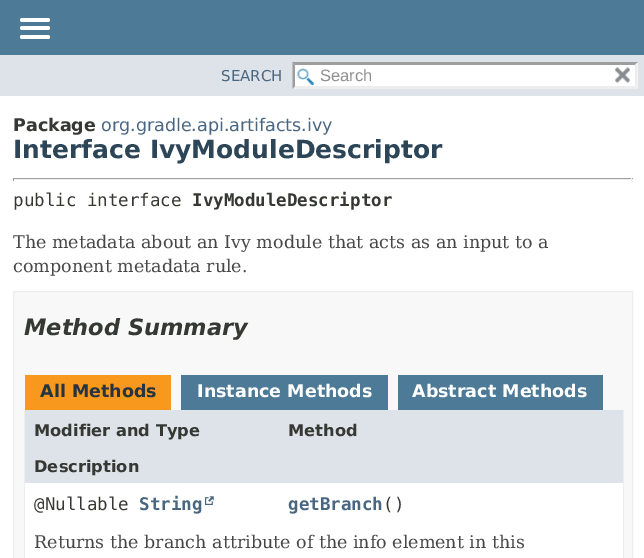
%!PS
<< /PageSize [644 558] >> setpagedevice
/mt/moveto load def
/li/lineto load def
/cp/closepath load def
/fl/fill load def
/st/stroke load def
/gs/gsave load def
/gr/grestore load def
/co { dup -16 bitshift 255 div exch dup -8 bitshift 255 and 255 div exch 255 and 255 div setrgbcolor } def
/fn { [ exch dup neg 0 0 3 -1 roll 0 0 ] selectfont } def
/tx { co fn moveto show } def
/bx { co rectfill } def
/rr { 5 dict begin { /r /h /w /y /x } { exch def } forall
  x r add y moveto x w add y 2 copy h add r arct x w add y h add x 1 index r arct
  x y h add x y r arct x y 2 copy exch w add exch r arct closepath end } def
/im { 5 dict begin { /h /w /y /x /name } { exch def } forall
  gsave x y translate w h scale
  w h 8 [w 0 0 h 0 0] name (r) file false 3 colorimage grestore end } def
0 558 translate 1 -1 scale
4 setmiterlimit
0 0 644 558 16#FFFFFF bx
0 0 644 55 16#4D7A97 bx
16#FFFFFF co
20 18 30 4 2 rr fl
20 26 30 4 2 rr fl
20 35 30 4 2 rr fl
0 55 644 41 16#DEE3E9 bx
293 63 345 26 16#FFFFFF bx
(media/1.raw) 297 68 17 17 im
16#9E9E9E co
292 62 mt 638 62 li 635 65 li 295 65 li cp fl
16#EDEDED co
637.5 62.5 mt 637.5 89 li 635 86 li 635 65 li cp fl
638 89 mt 292 89 li 295 86 li 635 86 li cp fl
16#9E9E9E co
292.5 89 mt 292.5 62.5 li 295 65 li 295 86 li cp fl
(media/2.raw) 615 67 15 16 im
13 178 620 1 16#9F9F9F bx
631 178 1 3 16#EEEEEE bx
13 179 620 1 16#EEEEEE bx
13 178 1 3 16#9F9F9F bx
16#F8F8F8 co
13.5 291.5 mt 632.5 291.5 li 632.5 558.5 li 13.5 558.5 li cp gs fl gr
16#EDEDED co
st
25 375 146 35 16#F8981D bx
181 375 207 35 16#4D7A97 bx
398 375 205 35 16#4D7A97 bx
623 410 1 148 16#EDEDED bx
24 410 1 148 16#EDEDED bx
25 410 598 73 16#DEE3E9 bx
25 483 598 75 16#FFFFFF bx
(media/3.raw) 205 496 9 9 im
(SEARCH) 221 81 /DejaVuSans-Regular 15 16#4A6782 tx
(Search) 320 81 /LiberationSans-Regular 16.5 16#909090 tx
(Package) 13 131 /DejaVuSans-Bold 17.5 16#353833 tx
(org.gradle.api.artifacts.ivy) 101 131 /DejaVuSans-Regular 17.5 16#4A6782 tx
(Interface IvyModuleDescriptor) 13 158 /DejaVuSans-Bold 25 16#2C4557 tx
(public interface) 13 206 /DejaVuSansMono-Regular 17.5 16#353833 tx
(IvyModuleDescriptor) 192 206 /DejaVuSansMono-Bold 17.5 16#353833 tx
(The metadata about an Ivy module that acts as an input to a) 13 248 /DejaVuSerif-Regular 17.5 16#474747 tx
(component metadata rule.) 13 272 /DejaVuSerif-Regular 17.5 16#474747 tx
(Method Summary) 24 335 /DejaVuSans-BoldItalic 22.5 16#353833 tx
(All Methods) 40 397 /DejaVuSans-Bold 17.5 16#253441 tx
(Instance Methods) 197 397 /DejaVuSans-Bold 17.5 16#FFFFFF tx
(Abstract Methods) 412 397 /DejaVuSans-Bold 17.5 16#FFFFFF tx
(Modifier and Type) 34 436 /DejaVuSans-Bold 16.25 16#353833 tx
(Method) 288 436 /DejaVuSans-Bold 16.25 16#353833 tx
(Description) 34 472 /DejaVuSans-Bold 16.25 16#353833 tx
(@Nullable) 34 510 /DejaVuSansMono-Regular 17.5 16#353833 tx
(String) 139 510 /DejaVuSansMono-Bold 17.5 16#4A6782 tx
(getBranch) 288 510 /DejaVuSansMono-Bold 17.5 16#4A6782 tx
(\(\)) 383 510 /DejaVuSansMono-Regular 17.5 16#353833 tx
(Returns the branch attribute of the info element in this) 34 548 /DejaVuSerif-Regular 17.5 16#474747 tx
showpage
